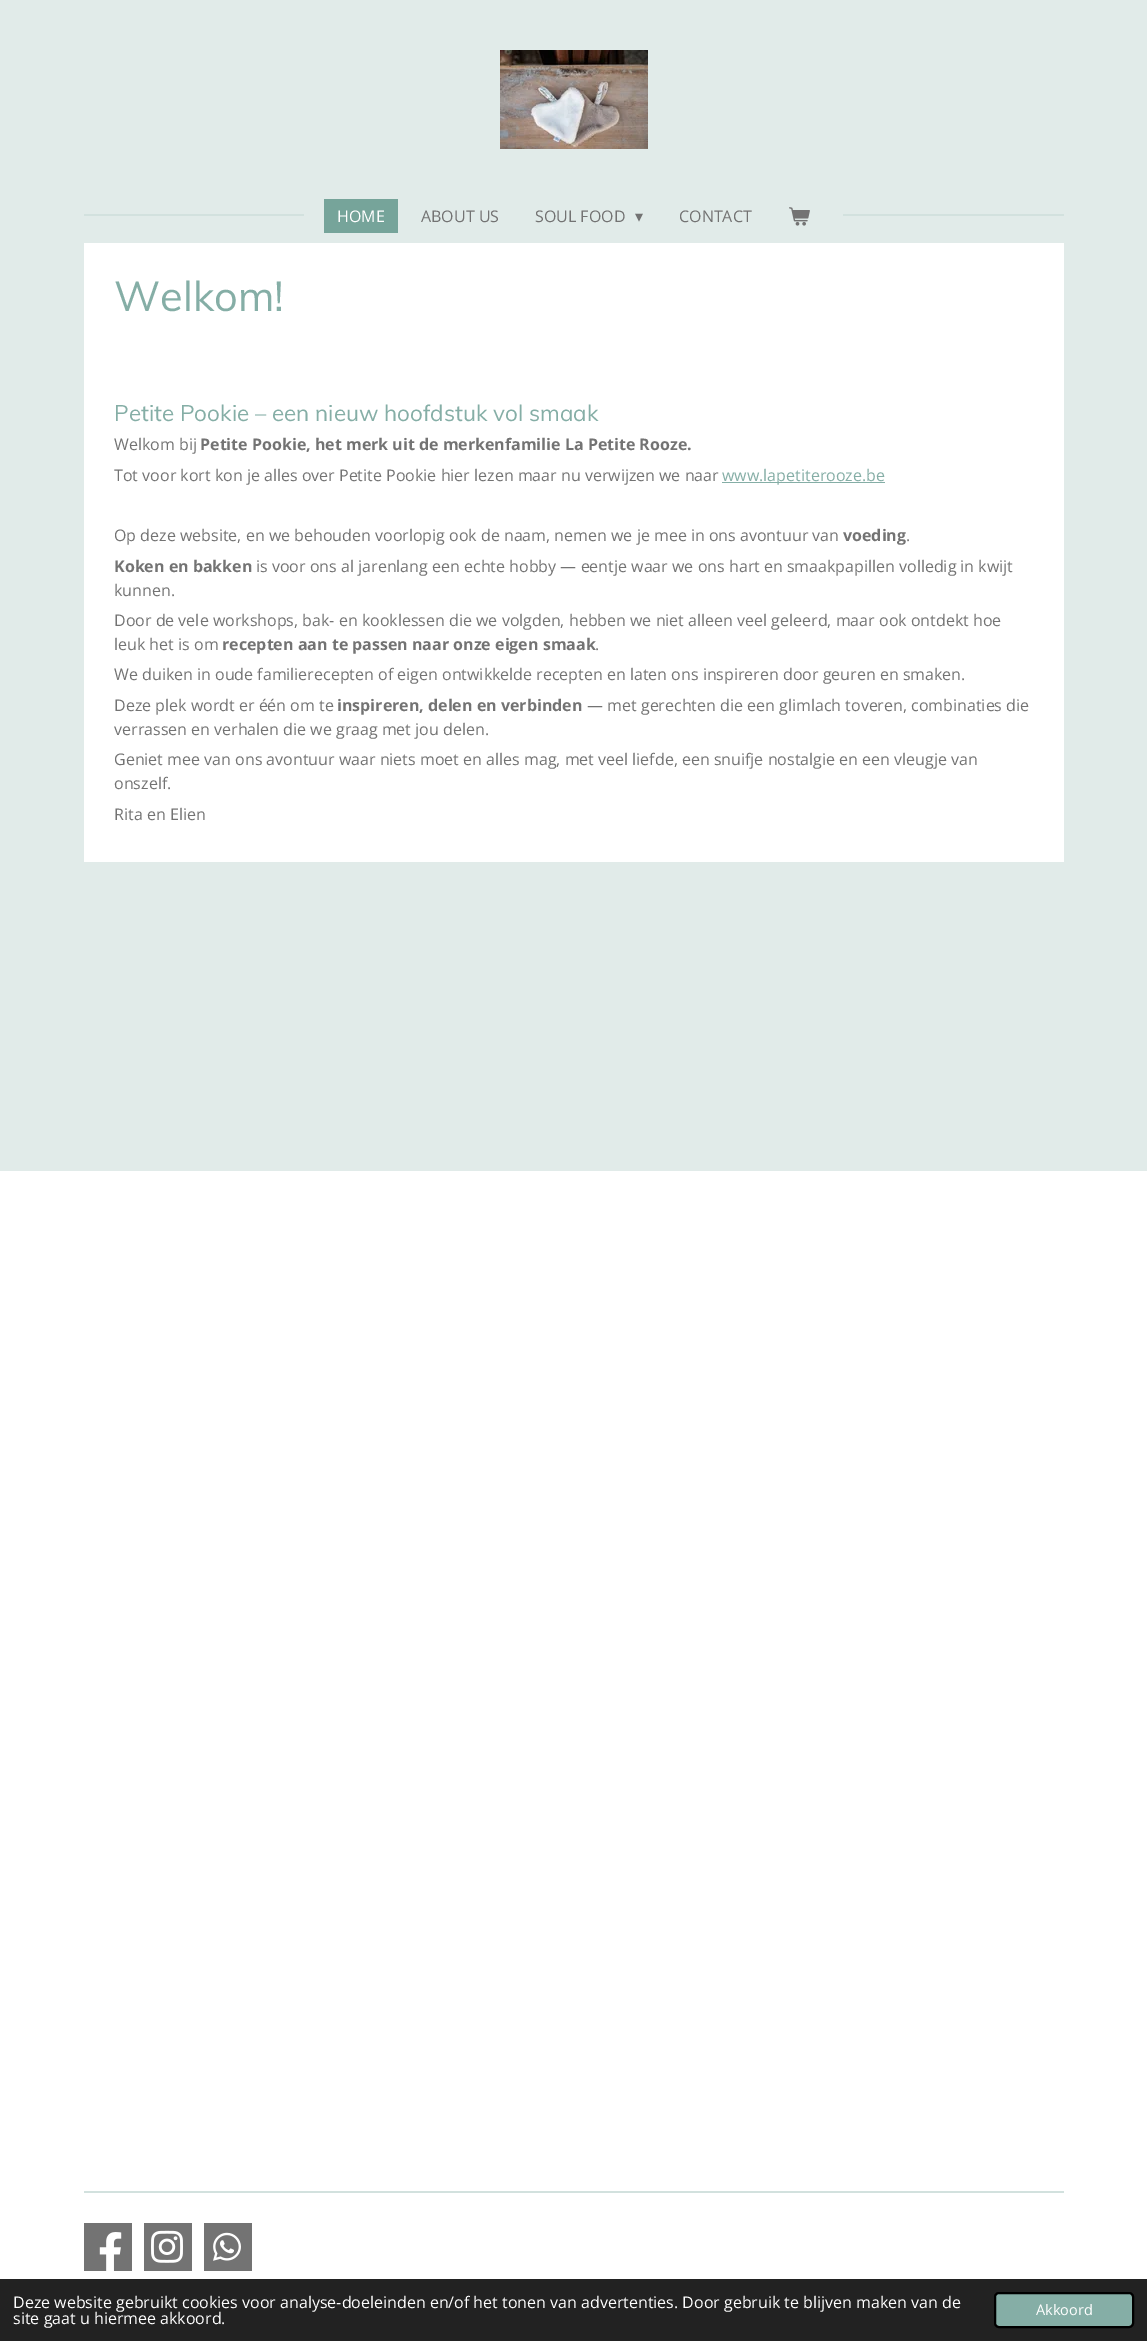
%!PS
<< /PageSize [1147 2341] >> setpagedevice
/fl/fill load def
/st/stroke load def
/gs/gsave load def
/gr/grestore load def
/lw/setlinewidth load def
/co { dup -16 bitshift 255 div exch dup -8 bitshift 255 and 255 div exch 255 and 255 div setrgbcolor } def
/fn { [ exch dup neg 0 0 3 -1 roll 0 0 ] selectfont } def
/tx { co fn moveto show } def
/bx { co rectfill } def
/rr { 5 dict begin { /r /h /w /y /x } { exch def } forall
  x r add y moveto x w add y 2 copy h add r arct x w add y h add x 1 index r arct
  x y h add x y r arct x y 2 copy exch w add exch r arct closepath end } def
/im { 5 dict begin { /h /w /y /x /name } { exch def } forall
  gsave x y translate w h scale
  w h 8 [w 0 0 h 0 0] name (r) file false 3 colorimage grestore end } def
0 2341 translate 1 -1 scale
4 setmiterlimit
0 0 1147 2341 16#FFFFFF bx
0 0 1147 1171 16#E1EBE9 bx
(media/1.raw) 500 50 148 99 im
84 214 220 2 16#D2E1DE bx
324 199 74 34 16#76A49A bx
(media/2.raw) 789 207 21 19 im
843 214 221 2 16#D2E1DE bx
84 243 980 619 16#FFFFFF bx
722 482 163 1 16#85AEA6 bx
84 2191 980 2 16#D2E1DE bx
84 2223 48 48 16#737373 bx
(media/3.raw) 99 2232 23 39 im
144 2223 48 48 16#737373 bx
(media/4.raw) 151 2230 32 33 im
204 2223 48 48 16#737373 bx
(media/5.raw) 213 2232 28 29 im
0 2279 1147 62 16#222222 bx
16#85AEA6 co
995 2293 138 34 4 rr gs fl gr
16#000000 co
2 lw
st
(HOME) 337 222 /OpenSans-Regular 16 16#FFFFFF tx
(ABOUT US) 421 222 /OpenSans-Regular 16 16#737373 tx
(SOUL FOOD) 535 222 /OpenSans-Regular 16 16#737373 tx
(▾) 635 222 /DejaVuSans-Regular 16 16#737373 tx
(CONTACT) 679 222 /OpenSans-Regular 16 16#737373 tx
(Welkom!) 114 311 /Muli-Regular 41.5 16#85AEA6 tx
(Petite Pookie – een nieuw hoofdstuk vol smaak) 114 421 /Muli-Regular 22.4 16#85AEA6 tx
(Welkom bij) 114 450 /OpenSans-Regular 16 16#737373 tx
(Petite Pookie, het merk uit de merkenfamilie La Petite Rooze.) 200 450 /OpenSans-Bold 16 16#737373 tx
(Tot voor kort kon je alles over Petite Pookie hier lezen maar nu verwijzen we naar) 114 481 /OpenSans-Regular 16 16#737373 tx
(www.lapetiterooze.be) 722 481 /OpenSans-Regular 16 16#85AEA6 tx
(Op deze website, en we behouden voorlopig ook de naam, nemen we je mee in ons avontuur van) 114 541 /OpenSans-Regular 16 16#737373 tx
(voeding) 843 541 /OpenSans-Bold 16 16#737373 tx
(.) 906 541 /OpenSans-Regular 16 16#737373 tx
(Koken en bakken) 114 572 /OpenSans-Bold 16 16#737373 tx
(is voor ons al jarenlang een echte hobby — eentje waar we ons hart en smaakpapillen volledig in kwijt) 256 572 /OpenSans-Regular 16 16#737373 tx
(kunnen.) 114 596 /OpenSans-Regular 16 16#737373 tx
(Door de vele workshops, bak- en kooklessen die we volgden, hebben we niet alleen veel geleerd, maar ook ontdekt hoe) 114 626 /OpenSans-Regular 16 16#737373 tx
(leuk het is om) 114 650 /OpenSans-Regular 16 16#737373 tx
(recepten aan te passen naar onze eigen smaak) 222 650 /OpenSans-Bold 16 16#737373 tx
(.) 595 650 /OpenSans-Regular 16 16#737373 tx
(We duiken in oude familierecepten of eigen ontwikkelde recepten en laten ons inspireren door geuren en smaken.) 114 680 /OpenSans-Regular 16 16#737373 tx
(Deze plek wordt er één om te) 114 711 /OpenSans-Regular 16 16#737373 tx
(inspireren, delen en verbinden) 337 711 /OpenSans-Bold 16 16#737373 tx
(— met gerechten die een glimlach toveren, combinaties die) 587 711 /OpenSans-Regular 16 16#737373 tx
(verrassen en verhalen die we graag met jou delen.) 114 735 /OpenSans-Regular 16 16#737373 tx
(Geniet mee van ons avontuur waar niets moet en alles mag, met veel liefde, een snuifje nostalgie en een vleugje van) 114 765 /OpenSans-Regular 16 16#737373 tx
(onszelf.) 114 789 /OpenSans-Regular 16 16#737373 tx
(Rita en Elien) 114 820 /OpenSans-Regular 16 16#737373 tx
(Deze website gebruikt cookies voor analyse-doeleinden en/of het tonen van advertenties. Door gebruik te blijven maken van de) 13 2308 /OpenSans-Regular 16 16#FFFFFF tx
(site gaat u hiermee akkoord.) 13 2324 /OpenSans-Regular 16 16#FFFFFF tx
(Akkoord) 1036 2315 /OpenSans-Regular 14.5 16#FFFFFF tx
showpage
